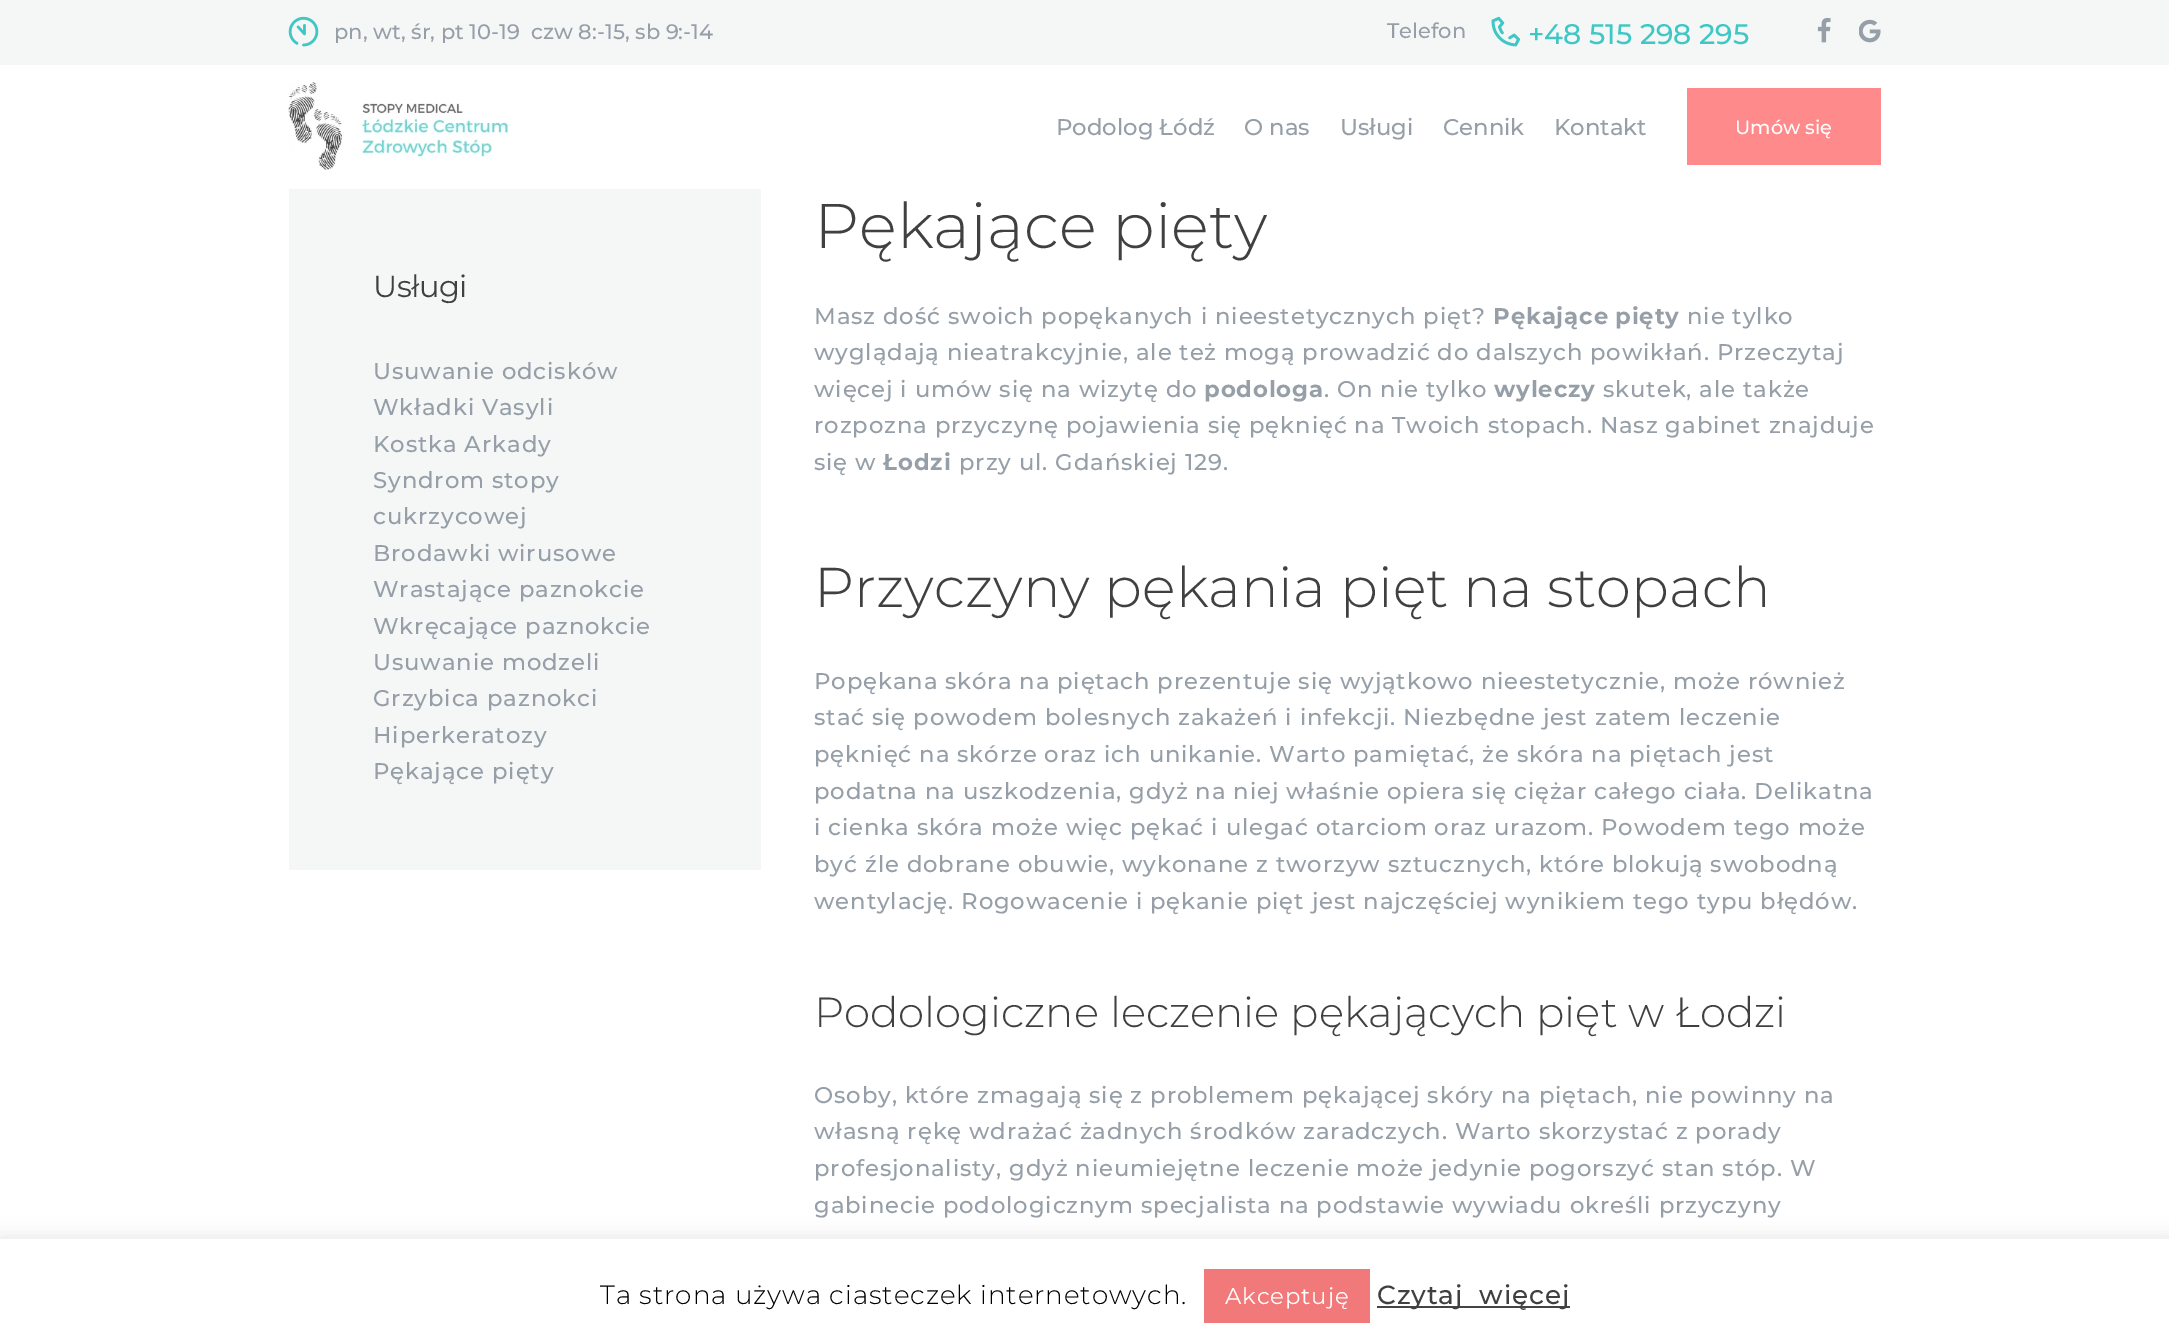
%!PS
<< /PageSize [2169 1344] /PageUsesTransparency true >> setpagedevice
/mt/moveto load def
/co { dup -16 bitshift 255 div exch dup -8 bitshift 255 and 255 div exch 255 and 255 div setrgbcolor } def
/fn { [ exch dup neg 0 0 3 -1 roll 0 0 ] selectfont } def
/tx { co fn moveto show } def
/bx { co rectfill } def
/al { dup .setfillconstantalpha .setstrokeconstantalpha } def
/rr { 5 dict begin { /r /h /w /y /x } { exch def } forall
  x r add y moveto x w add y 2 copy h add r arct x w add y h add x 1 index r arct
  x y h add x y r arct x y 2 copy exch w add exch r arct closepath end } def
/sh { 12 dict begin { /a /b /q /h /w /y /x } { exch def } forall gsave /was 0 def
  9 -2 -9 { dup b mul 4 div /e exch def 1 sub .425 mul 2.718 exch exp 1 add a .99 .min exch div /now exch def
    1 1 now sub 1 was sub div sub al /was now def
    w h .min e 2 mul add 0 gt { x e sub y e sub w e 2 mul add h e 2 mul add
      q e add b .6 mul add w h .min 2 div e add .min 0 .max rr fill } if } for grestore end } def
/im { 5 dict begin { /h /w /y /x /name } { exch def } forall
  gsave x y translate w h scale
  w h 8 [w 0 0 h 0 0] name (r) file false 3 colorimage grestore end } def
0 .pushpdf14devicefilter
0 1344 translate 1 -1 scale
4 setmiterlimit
0 0 2169 1344 16#FFFFFF bx
0 0 2169 65 16#F5F7F7 bx
(media/1.raw) 288 16 31 31 im
(media/2.raw) 1491 16 30 31 im
(media/3.raw) 1817 18 14 25 im
(media/4.raw) 1859 19 22 24 im
(media/5.raw) 288 82 220 88 im
1687 88 194 77 16#FF8A8B bx
289 189 472 681 16#F5F7F7 bx
16#ACABAB co
0 1237 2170 105 0 9 .3 sh
0 1239 2169 105 16#FFFFFF bx
1204 1269 166 54 16#F2797A bx
1377 1306 193 2 16#444444 bx
(pn, wt, śr, pt 10-19) 334 39 /Montserrat-Medium 21 16#969FA8 tx
(czw 8:-15, sb 9:-14) 531 39 /Montserrat-Medium 21 16#969FA8 tx
(Telefon) 1387 38 /Montserrat-Medium 21 16#969FA8 tx
(+48 515 298 295) 1528 44 /Montserrat-Medium 28.25 16#3EC7C5 tx
(Podolog Łódź) 1056 135 /Montserrat-Medium 22.75 16#969FA8 tx
(O nas) 1244 135 /Montserrat-Medium 22.75 16#969FA8 tx
(Usługi) 1340 135 /Montserrat-Medium 22.75 16#969FA8 tx
(Cennik) 1443 135 /Montserrat-Medium 22.75 16#969FA8 tx
(Kontakt) 1554 135 /Montserrat-Medium 22.75 16#969FA8 tx
(Umów się) 1735 134 /Montserrat-Medium 19.25 16#FFFFFF tx
/Montserrat-Regular 30.5 fn
16#404040 co
373 297 mt -.5 0 (Usługi) ashow
/Montserrat-Medium 22.75 fn
16#969FA8 co
373 379 mt .88 0 (Usuwanie odcisków) ashow
373 415 mt .88 0 (Wkładki Vasyli) ashow
373 452 mt .88 0 (Kostka Arkady) ashow
373 488 mt .88 0 (Syndrom stopy) ashow
373 524 mt .88 0 (cukrzycowej) ashow
373 561 mt .88 0 (Brodawki wirusowe) ashow
373 597 mt .88 0 (Wrastające paznokcie) ashow
373 634 mt .88 0 (Wkręcające paznokcie) ashow
373 670 mt .88 0 (Usuwanie modzeli) ashow
373 706 mt .88 0 (Grzybica paznokci) ashow
373 743 mt .88 0 (Hiperkeratozy) ashow
373 779 mt .88 0 (Pękające pięty) ashow
(Pękające pięty) 814 248 /Montserrat-Light 63 16#404040 tx
/Montserrat-Medium 22.75 fn
16#969FA8 co
814 324 mt .88 0 (Masz dość swoich popękanych i nieestetycznych pięt?) ashow
/Montserrat-Bold 22.75 fn
1493 324 mt .88 0 (Pękające) ashow
1615 324 mt .88 0 (pięty) ashow
/Montserrat-Medium 22.75 fn
1687 324 mt .88 0 (nie tylko) ashow
814 360 mt .88 0 (wyglądają nieatrakcyjnie, ale też mogą prowadzić do dalszych powikłań. Przeczytaj) ashow
814 397 mt .88 0 (więcej i umów się na wizytę do) ashow
/Montserrat-Bold 22.75 fn
1204 397 mt .88 0 (podologa) ashow
/Montserrat-Medium 22.75 fn
1324 397 mt .88 0 (. On nie tylko) ashow
/Montserrat-Bold 22.75 fn
1494 397 mt .88 0 (wyleczy) ashow
/Montserrat-Medium 22.75 fn
1603 397 mt .88 0 (skutek, ale także) ashow
814 433 mt .88 0 (rozpozna przyczynę pojawienia się pęknięć na Twoich stopach. Nasz gabinet znajduje) ashow
814 470 mt .88 0 (się w) ashow
/Montserrat-Bold 22.75 fn
883 470 mt .88 0 (Łodzi) ashow
/Montserrat-Medium 22.75 fn
959 470 mt .88 0 (przy ul. Gdańskiej 129.) ashow
(Przyczyny pękania pięt na stopach) 814 607 /Montserrat-Light 56 16#404040 tx
/Montserrat-Medium 22.75 fn
16#969FA8 co
814 689 mt .88 0 (Popękana skóra na piętach prezentuje się wyjątkowo nieestetycznie, może również) ashow
814 725 mt .88 0 (stać się powodem bolesnych zakażeń i infekcji. Niezbędne jest zatem leczenie) ashow
814 762 mt .88 0 (pęknięć na skórze oraz ich unikanie. Warto pamiętać, że skóra na piętach jest) ashow
814 799 mt .88 0 (podatna na uszkodzenia, gdyż na niej właśnie opiera się ciężar całego ciała. Delikatna) ashow
814 835 mt .88 0 (i cienka skóra może więc pękać i ulegać otarciom oraz urazom. Powodem tego może) ashow
814 872 mt .88 0 (być źle dobrane obuwie, wykonane z tworzyw sztucznych, które blokują swobodną) ashow
814 909 mt .88 0 (wentylację. Rogowacenie i pękanie pięt jest najczęściej wynikiem tego typu błędów.) ashow
(Podologiczne leczenie pękających pięt w Łodzi) 814 1027 /Montserrat-Light 42 16#404040 tx
/Montserrat-Medium 22.75 fn
16#969FA8 co
814 1103 mt .88 0 (Osoby, które zmagają się z problemem pękającej skóry na piętach, nie powinny na) ashow
814 1139 mt .88 0 (własną rękę wdrażać żadnych środków zaradczych. Warto skorzystać z porady) ashow
814 1176 mt .88 0 (profesjonalisty, gdyż nieumiejętne leczenie może jedynie pogorszyć stan stóp. W) ashow
814 1213 mt .88 0 (gabinecie podologicznym specjalista na podstawie wywiadu określi przyczyny) ashow
/Montserrat-Light 26.25 fn
16#000000 co
600 1304 mt .88 0 (Ta strona używa ciasteczek internetowych.) ashow
/Montserrat-Regular 22.75 fn
16#FFFFFF co
1225 1304 mt .88 0 (Akceptuję) ashow
/Montserrat-Medium 26.25 fn
16#404040 co
1377 1304 mt 8 0 32 .88 0 (Czytaj więcej) awidthshow
.poppdf14devicefilter showpage
